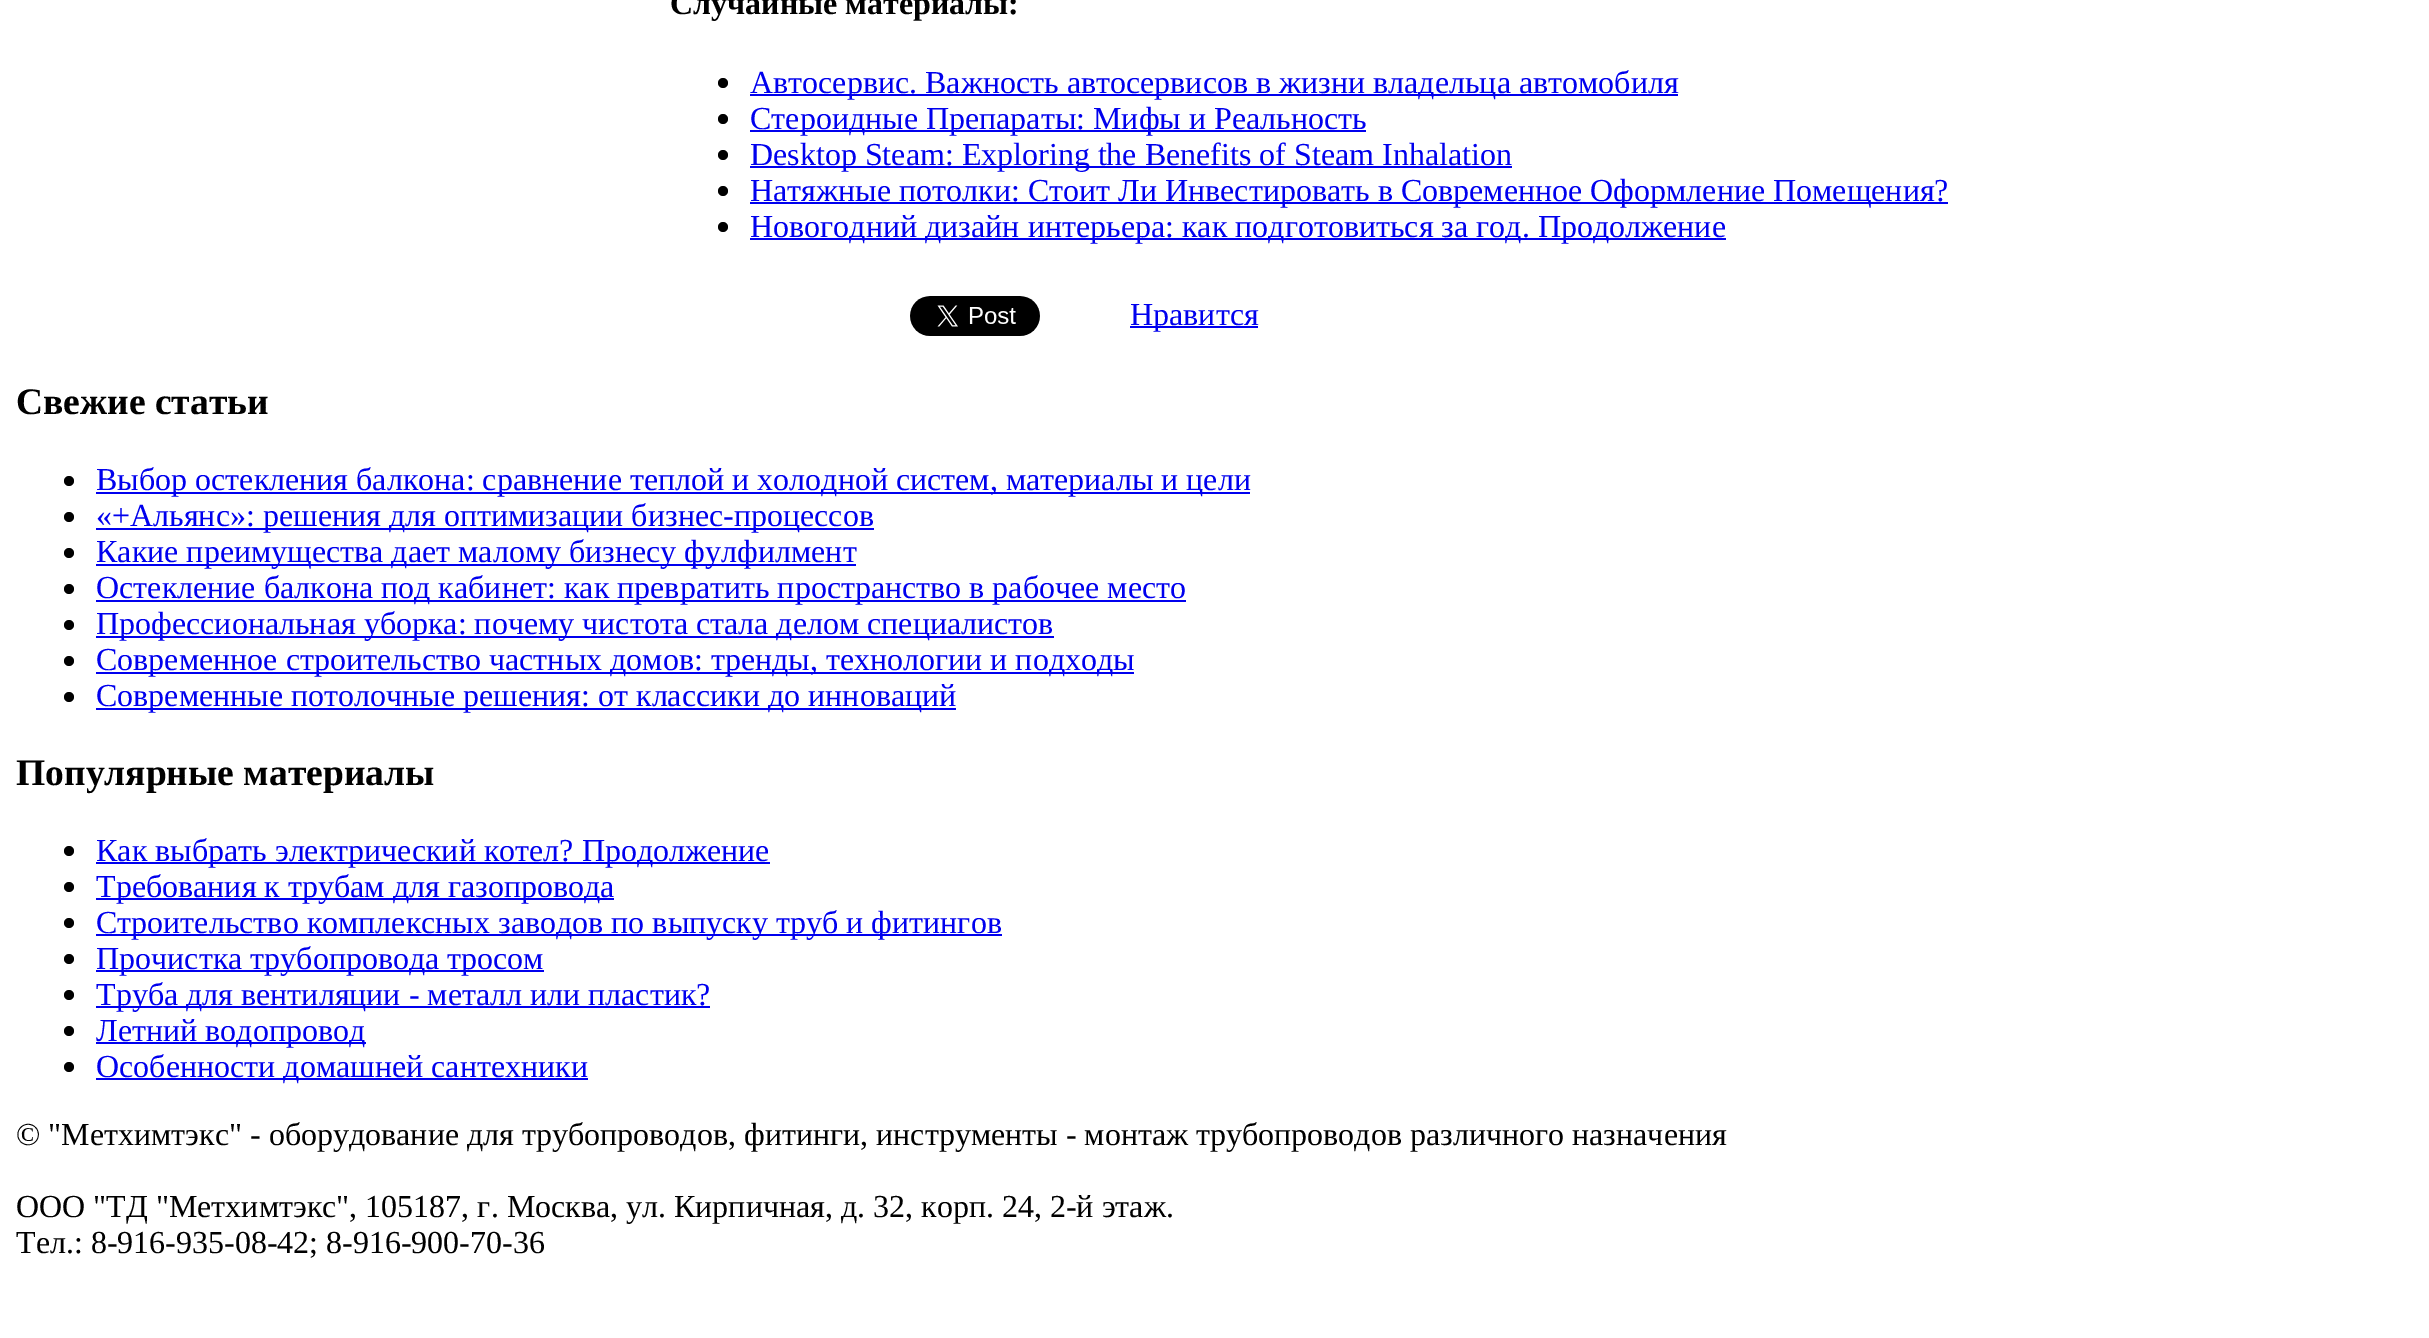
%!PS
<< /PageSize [2429 1338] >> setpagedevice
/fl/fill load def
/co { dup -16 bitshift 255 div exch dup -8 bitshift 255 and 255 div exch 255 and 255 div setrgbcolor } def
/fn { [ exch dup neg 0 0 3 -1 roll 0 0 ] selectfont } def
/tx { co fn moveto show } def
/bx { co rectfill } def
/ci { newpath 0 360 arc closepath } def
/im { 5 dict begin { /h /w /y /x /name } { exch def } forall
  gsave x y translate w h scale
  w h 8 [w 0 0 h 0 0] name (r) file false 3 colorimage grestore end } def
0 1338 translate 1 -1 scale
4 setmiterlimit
0 0 2429 1338 16#FFFFFF bx
16#000000 co
723 83 5 ci fl
750 94 928 2 16#0000EE bx
16#000000 co
723 119 5 ci fl
750 130 616 2 16#0000EE bx
16#000000 co
723 155 5 ci fl
750 166 762 2 16#0000EE bx
16#000000 co
723 191 5 ci fl
750 202 1198 2 16#0000EE bx
16#000000 co
723 227 5 ci fl
750 238 976 2 16#0000EE bx
(media/1.raw) 910 296 130 40 im
1130 326 128 2 16#0000EE bx
16#000000 co
69 481 5 ci fl
96 492 1154 2 16#0000EE bx
16#000000 co
69 517 5 ci fl
96 528 778 2 16#0000EE bx
16#000000 co
69 553 5 ci fl
96 564 760 2 16#0000EE bx
16#000000 co
69 589 5 ci fl
96 600 1090 2 16#0000EE bx
16#000000 co
69 625 5 ci fl
96 636 958 2 16#0000EE bx
16#000000 co
69 661 5 ci fl
96 672 1038 2 16#0000EE bx
16#000000 co
69 697 5 ci fl
96 708 860 2 16#0000EE bx
16#000000 co
69 851 5 ci fl
96 862 674 2 16#0000EE bx
16#000000 co
69 887 5 ci fl
96 898 518 2 16#0000EE bx
16#000000 co
69 923 5 ci fl
96 934 906 2 16#0000EE bx
16#000000 co
69 959 5 ci fl
96 970 448 2 16#0000EE bx
16#000000 co
69 995 5 ci fl
96 1006 614 2 16#0000EE bx
16#000000 co
69 1031 5 ci fl
96 1042 270 2 16#0000EE bx
16#000000 co
69 1067 5 ci fl
96 1078 492 2 16#0000EE bx
(Случайные материалы:) 670 14 /LiberationSerif-Bold 32 16#000000 tx
(Автосервис. Важность автосервисов в жизни владельца автомобиля) 750 93 /LiberationSerif-Regular 32 16#0000EE tx
(Стероидные Препараты: Мифы и Реальность) 750 129 /LiberationSerif-Regular 32 16#0000EE tx
(Desktop Steam: Exploring the Benefits of Steam Inhalation) 750 165 /LiberationSerif-Regular 32 16#0000EE tx
(Натяжные потолки: Стоит Ли Инвестировать в Современное Оформление Помещения?) 750 201 /LiberationSerif-Regular 32 16#0000EE tx
(Новогодний дизайн интерьера: как подготовиться за год. Продолжение) 750 237 /LiberationSerif-Regular 32 16#0000EE tx
(Нравится) 1130 325 /LiberationSerif-Regular 32 16#0000EE tx
(Свежие статьи) 16 414 /LiberationSerif-Bold 37.5 16#000000 tx
(Выбор остекления балкона: сравнение теплой и холодной систем, материалы и цели) 96 490 /LiberationSerif-Regular 32 16#0000EE tx
(«+Альянс»: решения для оптимизации бизнес-процессов) 96 526 /LiberationSerif-Regular 32 16#0000EE tx
(Какие преимущества дает малому бизнесу фулфилмент) 96 562 /LiberationSerif-Regular 32 16#0000EE tx
(Остекление балкона под кабинет: как превратить пространство в рабочее место) 96 598 /LiberationSerif-Regular 32 16#0000EE tx
(Профессиональная уборка: почему чистота стала делом специалистов) 96 634 /LiberationSerif-Regular 32 16#0000EE tx
(Современное строительство частных домов: тренды, технологии и подходы) 96 670 /LiberationSerif-Regular 32 16#0000EE tx
(Современные потолочные решения: от классики до инноваций) 96 706 /LiberationSerif-Regular 32 16#0000EE tx
(Популярные материалы) 16 785 /LiberationSerif-Bold 37.5 16#000000 tx
(Как выбрать электрический котел? Продолжение) 96 861 /LiberationSerif-Regular 32 16#0000EE tx
(Требования к трубам для газопровода) 96 897 /LiberationSerif-Regular 32 16#0000EE tx
(Строительство комплексных заводов по выпуску труб и фитингов) 96 933 /LiberationSerif-Regular 32 16#0000EE tx
(Прочистка трубопровода тросом) 96 969 /LiberationSerif-Regular 32 16#0000EE tx
(Труба для вентиляции - металл или пластик?) 96 1005 /LiberationSerif-Regular 32 16#0000EE tx
(Летний водопровод) 96 1041 /LiberationSerif-Regular 32 16#0000EE tx
(Особенности домашней сантехники) 96 1077 /LiberationSerif-Regular 32 16#0000EE tx
(© "Метхимтэкс" - оборудование для трубопроводов, фитинги, инструменты - монтаж трубопроводов различного назначения) 16 1145 /LiberationSerif-Regular 32 16#000000 tx
(ООО "ТД "Метхимтэкс", 105187, г. Москва, ул. Кирпичная, д. 32, корп. 24, 2-й этаж.) 16 1217 /LiberationSerif-Regular 32 16#000000 tx
(Тел.: 8-916-935-08-42; 8-916-900-70-36) 16 1253 /LiberationSerif-Regular 32 16#000000 tx
showpage
